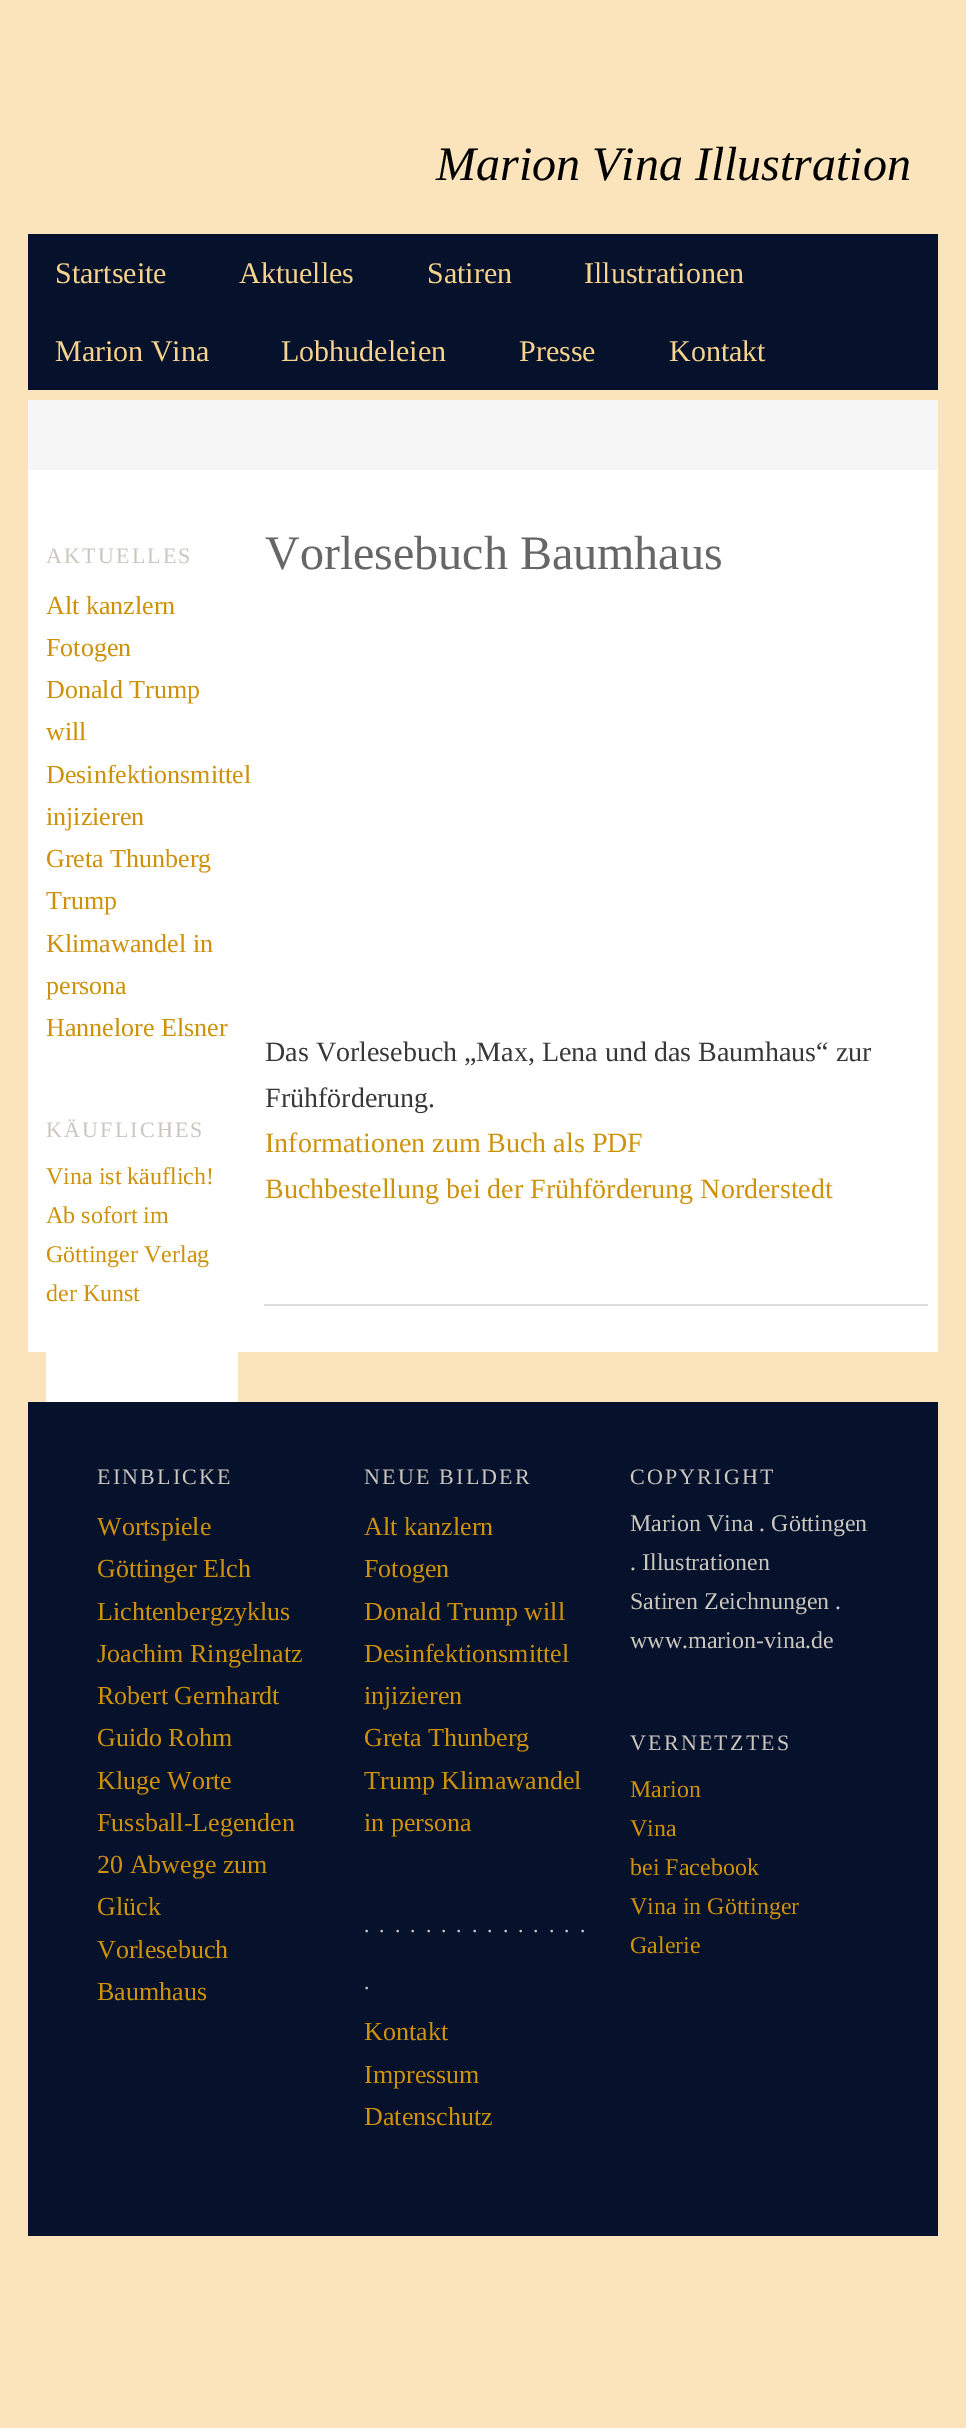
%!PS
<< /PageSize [966 2428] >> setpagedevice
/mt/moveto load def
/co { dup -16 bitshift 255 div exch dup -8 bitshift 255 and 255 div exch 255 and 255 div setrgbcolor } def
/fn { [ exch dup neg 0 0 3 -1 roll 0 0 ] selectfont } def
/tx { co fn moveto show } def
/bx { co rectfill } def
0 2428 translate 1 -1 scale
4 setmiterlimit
0 0 966 2428 16#FBE4BB bx
28 234 910 156 16#06122C bx
28 470 910 882 16#FFFFFF bx
28 400 910 70 16#F6F6F6 bx
46 1352 192 50 16#FFFFFF bx
264 1304 664 2 16#DDDDDD bx
28 1402 910 834 16#06122C bx
(Marion Vina Illustration) 436 180 /LiberationSerif-Italic 48 16#000000 tx
(Startseite) 55 283 /LiberationSerif-Regular 30 16#F8D38D tx
(Aktuelles) 239 283 /LiberationSerif-Regular 30 16#F8D38D tx
(Satiren) 427 283 /LiberationSerif-Regular 30 16#F8D38D tx
(Illustrationen) 584 283 /LiberationSerif-Regular 30 16#F8D38D tx
(Marion Vina) 55 361 /LiberationSerif-Regular 30 16#F8D38D tx
(Lobhudeleien) 281 361 /LiberationSerif-Regular 30 16#F8D38D tx
(Presse) 519 361 /LiberationSerif-Regular 30 16#F8D38D tx
(Kontakt) 669 361 /LiberationSerif-Regular 30 16#F8D38D tx
/LiberationSerif-Regular 22 fn
16#CBC7BF co
46 563 mt 2.2 0 (AKTUELLES) ashow
(Alt kanzlern) 46 614 /LiberationSerif-Regular 26 16#CD910A tx
(Fotogen) 46 656 /LiberationSerif-Regular 26 16#CD910A tx
(Donald Trump) 46 698 /LiberationSerif-Regular 26 16#CD910A tx
(will) 46 740 /LiberationSerif-Regular 26 16#CD910A tx
(Desinfektionsmittel) 46 783 /LiberationSerif-Regular 26 16#CD910A tx
(injizieren) 46 825 /LiberationSerif-Regular 26 16#CD910A tx
(Greta Thunberg) 46 867 /LiberationSerif-Regular 26 16#CD910A tx
(Trump) 46 909 /LiberationSerif-Regular 26 16#CD910A tx
(Klimawandel in) 46 952 /LiberationSerif-Regular 26 16#CD910A tx
(persona) 46 994 /LiberationSerif-Regular 26 16#CD910A tx
(Hannelore Elsner) 46 1036 /LiberationSerif-Regular 26 16#CD910A tx
/LiberationSerif-Regular 22 fn
16#CBC7BF co
46 1137 mt 2.2 0 (KÄUFLICHES) ashow
(Vina ist käuflich!) 46 1184 /LiberationSerif-Regular 24 16#CD910A tx
(Ab sofort im) 46 1223 /LiberationSerif-Regular 24 16#CD910A tx
(Göttinger Verlag) 46 1262 /LiberationSerif-Regular 24 16#CD910A tx
(der Kunst) 46 1301 /LiberationSerif-Regular 24 16#CD910A tx
(Vorlesebuch Baumhaus) 265 569 /LiberationSerif-Regular 48 16#666666 tx
(Das Vorlesebuch „Max, Lena und das Baumhaus“ zur) 265 1061 /LiberationSerif-Regular 28 16#373737 tx
(Frühförderung.) 265 1107 /LiberationSerif-Regular 28 16#373737 tx
(Informationen zum Buch als PDF) 265 1152 /LiberationSerif-Regular 28 16#CD910A tx
(Buchbestellung bei der Frühförderung Norderstedt) 265 1198 /LiberationSerif-Regular 28 16#CD910A tx
/LiberationSerif-Regular 22 fn
16#CBC7BF co
97 1484 mt 2.2 0 (EINBLICKE) ashow
(Wortspiele) 97 1535 /LiberationSerif-Regular 26 16#CD910A tx
(Göttinger Elch) 97 1577 /LiberationSerif-Regular 26 16#CD910A tx
(Lichtenbergzyklus) 97 1620 /LiberationSerif-Regular 26 16#CD910A tx
(Joachim Ringelnatz) 97 1662 /LiberationSerif-Regular 26 16#CD910A tx
(Robert Gernhardt) 97 1704 /LiberationSerif-Regular 26 16#CD910A tx
(Guido Rohm) 97 1746 /LiberationSerif-Regular 26 16#CD910A tx
(Kluge Worte) 97 1789 /LiberationSerif-Regular 26 16#CD910A tx
(Fussball-Legenden) 97 1831 /LiberationSerif-Regular 26 16#CD910A tx
(20 Abwege zum) 97 1873 /LiberationSerif-Regular 26 16#CD910A tx
(Glück) 97 1915 /LiberationSerif-Regular 26 16#CD910A tx
(Vorlesebuch) 97 1958 /LiberationSerif-Regular 26 16#CD910A tx
(Baumhaus) 97 2000 /LiberationSerif-Regular 26 16#CD910A tx
/LiberationSerif-Regular 22 fn
16#CBC7BF co
364 1484 mt 2.2 0 (NEUE BILDER) ashow
(Alt kanzlern) 364 1535 /LiberationSerif-Regular 26 16#CD910A tx
(Fotogen) 364 1577 /LiberationSerif-Regular 26 16#CD910A tx
(Donald Trump will) 364 1620 /LiberationSerif-Regular 26 16#CD910A tx
(Desinfektionsmittel) 364 1662 /LiberationSerif-Regular 26 16#CD910A tx
(injizieren) 364 1704 /LiberationSerif-Regular 26 16#CD910A tx
(Greta Thunberg) 364 1746 /LiberationSerif-Regular 26 16#CD910A tx
(Trump Klimawandel) 364 1789 /LiberationSerif-Regular 26 16#CD910A tx
(in persona) 364 1831 /LiberationSerif-Regular 26 16#CD910A tx
/LiberationSerif-Regular 22 fn
16#CBC7BF co
364 1932 mt 2.2 0 (. . . . . . . . . . . . . . .) ashow
364 1989 mt 2.2 0 (.) ashow
(Kontakt) 364 2040 /LiberationSerif-Regular 26 16#CD910A tx
(Impressum) 364 2083 /LiberationSerif-Regular 26 16#CD910A tx
(Datenschutz) 364 2125 /LiberationSerif-Regular 26 16#CD910A tx
/LiberationSerif-Regular 22 fn
16#CBC7BF co
630 1484 mt 2.2 0 (COPYRIGHT) ashow
(Marion Vina . Göttingen) 630 1531 /LiberationSerif-Regular 24 16#CBC7BF tx
(. Illustrationen) 630 1570 /LiberationSerif-Regular 24 16#CBC7BF tx
(Satiren Zeichnungen .) 630 1609 /LiberationSerif-Regular 24 16#CBC7BF tx
(www.marion-vina.de) 630 1648 /LiberationSerif-Regular 24 16#CBC7BF tx
/LiberationSerif-Regular 22 fn
630 1750 mt 2.2 0 (VERNETZTES) ashow
(Marion) 630 1797 /LiberationSerif-Regular 24 16#CD910A tx
(Vina) 630 1836 /LiberationSerif-Regular 24 16#CD910A tx
(bei Facebook) 630 1875 /LiberationSerif-Regular 24 16#CD910A tx
(Vina in Göttinger) 630 1914 /LiberationSerif-Regular 24 16#CD910A tx
(Galerie) 630 1953 /LiberationSerif-Regular 24 16#CD910A tx
showpage
